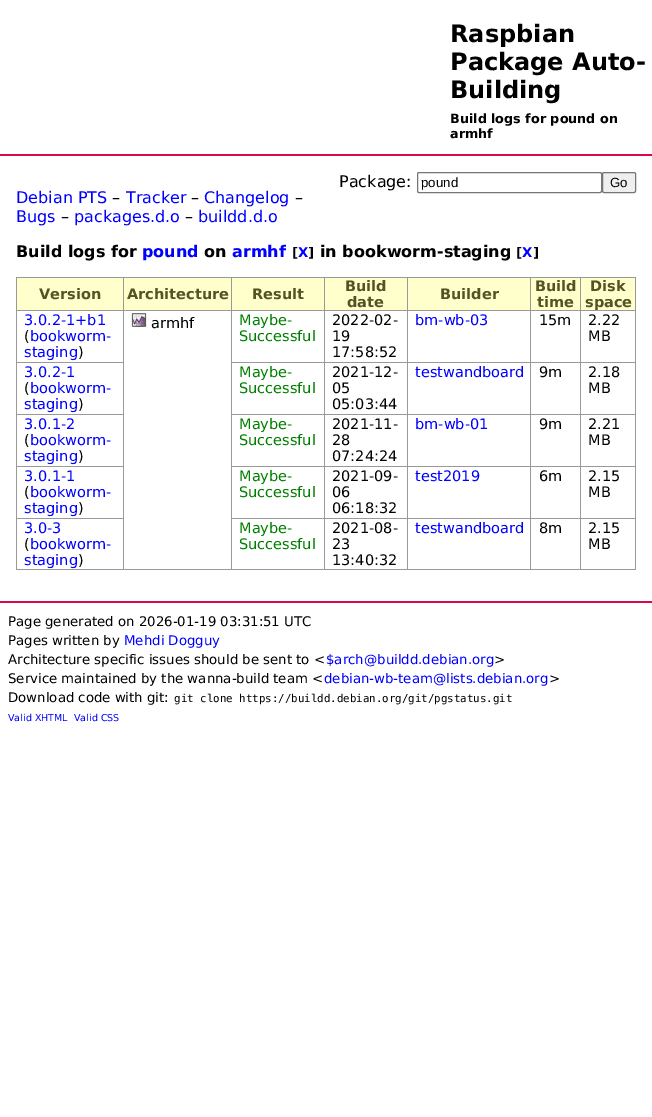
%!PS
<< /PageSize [652 1117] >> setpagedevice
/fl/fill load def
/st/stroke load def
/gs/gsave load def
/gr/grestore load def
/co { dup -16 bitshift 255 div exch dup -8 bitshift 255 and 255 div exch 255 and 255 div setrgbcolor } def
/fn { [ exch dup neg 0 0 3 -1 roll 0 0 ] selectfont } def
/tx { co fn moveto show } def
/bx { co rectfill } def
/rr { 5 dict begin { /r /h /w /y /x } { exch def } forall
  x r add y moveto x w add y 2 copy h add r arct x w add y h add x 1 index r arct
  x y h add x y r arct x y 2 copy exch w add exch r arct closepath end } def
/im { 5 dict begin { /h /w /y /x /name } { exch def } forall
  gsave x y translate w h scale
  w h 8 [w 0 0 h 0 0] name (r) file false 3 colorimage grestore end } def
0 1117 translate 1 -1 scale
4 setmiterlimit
0 0 652 1117 16#FFFFFF bx
0 154 652 2 16#D70751 bx
16#767676 co
417.5 172.5 184 20 1.5 rr st
16#EFEFEF co
602.5 172.5 33 20 1.5 rr gs fl gr
16#767676 co
st
16 277 620 1 16#999999 bx
635 277 1 293 16#999999 bx
16 569 620 1 16#999999 bx
16 277 1 293 16#999999 bx
17 278 106 32 16#FFFFCC bx
124 278 107 32 16#FFFFCC bx
580 310 56 1 16#999999 bx
580 362 56 1 16#999999 bx
580 414 56 1 16#999999 bx
580 466 56 1 16#999999 bx
580 518 56 1 16#999999 bx
580 518 1 52 16#999999 bx
530 518 51 1 16#999999 bx
580 466 1 53 16#999999 bx
530 466 51 1 16#999999 bx
580 414 1 53 16#999999 bx
530 414 51 1 16#999999 bx
580 362 1 53 16#999999 bx
530 362 51 1 16#999999 bx
580 310 1 53 16#999999 bx
530 310 51 1 16#999999 bx
530 518 1 52 16#999999 bx
407 518 124 1 16#999999 bx
530 466 1 53 16#999999 bx
407 466 124 1 16#999999 bx
530 414 1 53 16#999999 bx
407 414 124 1 16#999999 bx
530 362 1 53 16#999999 bx
407 362 124 1 16#999999 bx
530 310 1 53 16#999999 bx
407 310 124 1 16#999999 bx
407 518 1 52 16#999999 bx
324 518 84 1 16#999999 bx
407 466 1 53 16#999999 bx
324 466 84 1 16#999999 bx
407 414 1 53 16#999999 bx
324 414 84 1 16#999999 bx
407 362 1 53 16#999999 bx
324 362 84 1 16#999999 bx
407 310 1 53 16#999999 bx
324 310 84 1 16#999999 bx
324 518 1 52 16#999999 bx
231 518 94 1 16#999999 bx
324 466 1 53 16#999999 bx
231 466 94 1 16#999999 bx
324 414 1 53 16#999999 bx
231 414 94 1 16#999999 bx
324 362 1 53 16#999999 bx
231 362 94 1 16#999999 bx
324 310 1 53 16#999999 bx
231 310 94 1 16#999999 bx
231 518 1 52 16#999999 bx
231 466 1 53 16#999999 bx
231 414 1 53 16#999999 bx
231 362 1 53 16#999999 bx
231 310 1 53 16#999999 bx
123 310 109 1 16#999999 bx
123 518 1 52 16#999999 bx
16 518 108 1 16#999999 bx
123 466 1 53 16#999999 bx
16 466 108 1 16#999999 bx
123 414 1 53 16#999999 bx
16 414 108 1 16#999999 bx
123 362 1 53 16#999999 bx
16 362 108 1 16#999999 bx
123 310 1 53 16#999999 bx
16 310 108 1 16#999999 bx
123 277 1 34 16#999999 bx
232 278 92 32 16#FFFFCC bx
231 277 1 34 16#999999 bx
325 278 82 32 16#FFFFCC bx
324 277 1 34 16#999999 bx
408 278 122 32 16#FFFFCC bx
407 277 1 34 16#999999 bx
531 278 49 32 16#FFFFCC bx
530 277 1 34 16#999999 bx
581 278 54 32 16#FFFFCC bx
580 277 1 34 16#999999 bx
(media/1.raw) 131 313 16 14 im
0 601 652 2 16#D70751 bx
(Raspbian) 450 42 /DejaVuSans-Bold 24 16#000000 tx
(Package Auto-) 450 70 /DejaVuSans-Bold 24 16#000000 tx
(Building) 450 98 /DejaVuSans-Bold 24 16#000000 tx
(Build logs for pound on) 450 123 /DejaVuSans-Bold 12.75 16#000000 tx
(armhf) 450 138 /DejaVuSans-Bold 12.75 16#000000 tx
(Package:) 339 187 /DejaVuSans-Regular 16 16#000000 tx
(pound) 421 187 /LiberationSans-Regular 13.3 16#000000 tx
(Go) 610 187 /LiberationSans-Regular 13.3 16#000000 tx
(Debian PTS) 16 203 /DejaVuSans-Regular 16 16#0000FF tx
(–) 112 203 /DejaVuSans-Regular 16 16#000000 tx
(Tracker) 126 203 /DejaVuSans-Regular 16 16#0000FF tx
(–) 191 203 /DejaVuSans-Regular 16 16#000000 tx
(Changelog) 204 203 /DejaVuSans-Regular 16 16#0000FF tx
(–) 295 203 /DejaVuSans-Regular 16 16#000000 tx
(Bugs) 16 222 /DejaVuSans-Regular 16 16#0000FF tx
(–) 61 222 /DejaVuSans-Regular 16 16#000000 tx
(packages.d.o) 74 222 /DejaVuSans-Regular 16 16#0000FF tx
(–) 185 222 /DejaVuSans-Regular 16 16#000000 tx
(buildd.d.o) 198 222 /DejaVuSans-Regular 16 16#0000FF tx
(Build logs for) 16 257 /DejaVuSans-Bold 16 16#000000 tx
(pound) 142 257 /DejaVuSans-Bold 16 16#0000FF tx
(on) 204 257 /DejaVuSans-Bold 16 16#000000 tx
(armhf) 232 257 /DejaVuSans-Bold 16 16#0000FF tx
([) 292 257 /DejaVuSans-Bold 13.3 16#000000 tx
(X) 298 257 /DejaVuSans-Bold 13.3 16#0000FF tx
(]) 308 257 /DejaVuSans-Bold 13.3 16#000000 tx
(in bookworm-staging) 320 257 /DejaVuSans-Bold 16 16#000000 tx
([) 516 257 /DejaVuSans-Bold 13.3 16#000000 tx
(X) 522 257 /DejaVuSans-Bold 13.3 16#0000FF tx
(]) 533 257 /DejaVuSans-Bold 13.3 16#000000 tx
(Version) 39 299 /DejaVuSans-Bold 14.5 16#545325 tx
(Architecture) 127 299 /DejaVuSans-Bold 14.5 16#545325 tx
(Result) 252 299 /DejaVuSans-Bold 14.5 16#545325 tx
(Build) 345 291 /DejaVuSans-Bold 14.5 16#545325 tx
(date) 347 307 /DejaVuSans-Bold 14.5 16#545325 tx
(Builder) 440 299 /DejaVuSans-Bold 14.5 16#545325 tx
(Build) 535 291 /DejaVuSans-Bold 14.5 16#545325 tx
(time) 537 307 /DejaVuSans-Bold 14.5 16#545325 tx
(Disk) 590 291 /DejaVuSans-Bold 14.5 16#545325 tx
(space) 585 307 /DejaVuSans-Bold 14.5 16#545325 tx
(3.0.2-1+b1) 24 325 /DejaVuSans-Regular 14.5 16#0000FF tx
(\() 24 341 /DejaVuSans-Regular 14.5 16#000000 tx
(bookworm-) 30 341 /DejaVuSans-Regular 14.5 16#0000FF tx
(staging) 24 357 /DejaVuSans-Regular 14.5 16#0000FF tx
(\)) 78 357 /DejaVuSans-Regular 14.5 16#000000 tx
(armhf) 151 328 /DejaVuSans-Regular 14.5 16#000000 tx
(Maybe-) 239 325 /DejaVuSans-Regular 14.5 16#008000 tx
(Successful) 239 341 /DejaVuSans-Regular 14.5 16#008000 tx
(2022-02-) 332 325 /DejaVuSans-Regular 14.5 16#000000 tx
(19) 332 341 /DejaVuSans-Regular 14.5 16#000000 tx
(17:58:52) 332 357 /DejaVuSans-Regular 14.5 16#000000 tx
(bm-wb-03) 415 325 /DejaVuSans-Regular 14.5 16#0000FF tx
(15m) 539 325 /DejaVuSans-Regular 14.5 16#000000 tx
(2.22) 588 325 /DejaVuSans-Regular 14.5 16#000000 tx
(MB) 588 341 /DejaVuSans-Regular 14.5 16#000000 tx
(3.0.2-1) 24 377 /DejaVuSans-Regular 14.5 16#0000FF tx
(\() 24 393 /DejaVuSans-Regular 14.5 16#000000 tx
(bookworm-) 30 393 /DejaVuSans-Regular 14.5 16#0000FF tx
(staging) 24 409 /DejaVuSans-Regular 14.5 16#0000FF tx
(\)) 78 409 /DejaVuSans-Regular 14.5 16#000000 tx
(Maybe-) 239 377 /DejaVuSans-Regular 14.5 16#008000 tx
(Successful) 239 393 /DejaVuSans-Regular 14.5 16#008000 tx
(2021-12-) 332 377 /DejaVuSans-Regular 14.5 16#000000 tx
(05) 332 393 /DejaVuSans-Regular 14.5 16#000000 tx
(05:03:44) 332 409 /DejaVuSans-Regular 14.5 16#000000 tx
(testwandboard) 415 377 /DejaVuSans-Regular 14.5 16#0000FF tx
(9m) 539 377 /DejaVuSans-Regular 14.5 16#000000 tx
(2.18) 588 377 /DejaVuSans-Regular 14.5 16#000000 tx
(MB) 588 393 /DejaVuSans-Regular 14.5 16#000000 tx
(3.0.1-2) 24 429 /DejaVuSans-Regular 14.5 16#0000FF tx
(\() 24 445 /DejaVuSans-Regular 14.5 16#000000 tx
(bookworm-) 30 445 /DejaVuSans-Regular 14.5 16#0000FF tx
(staging) 24 461 /DejaVuSans-Regular 14.5 16#0000FF tx
(\)) 78 461 /DejaVuSans-Regular 14.5 16#000000 tx
(Maybe-) 239 429 /DejaVuSans-Regular 14.5 16#008000 tx
(Successful) 239 445 /DejaVuSans-Regular 14.5 16#008000 tx
(2021-11-) 332 429 /DejaVuSans-Regular 14.5 16#000000 tx
(28) 332 445 /DejaVuSans-Regular 14.5 16#000000 tx
(07:24:24) 332 461 /DejaVuSans-Regular 14.5 16#000000 tx
(bm-wb-01) 415 429 /DejaVuSans-Regular 14.5 16#0000FF tx
(9m) 539 429 /DejaVuSans-Regular 14.5 16#000000 tx
(2.21) 588 429 /DejaVuSans-Regular 14.5 16#000000 tx
(MB) 588 445 /DejaVuSans-Regular 14.5 16#000000 tx
(3.0.1-1) 24 481 /DejaVuSans-Regular 14.5 16#0000FF tx
(\() 24 497 /DejaVuSans-Regular 14.5 16#000000 tx
(bookworm-) 30 497 /DejaVuSans-Regular 14.5 16#0000FF tx
(staging) 24 513 /DejaVuSans-Regular 14.5 16#0000FF tx
(\)) 78 513 /DejaVuSans-Regular 14.5 16#000000 tx
(Maybe-) 239 481 /DejaVuSans-Regular 14.5 16#008000 tx
(Successful) 239 497 /DejaVuSans-Regular 14.5 16#008000 tx
(2021-09-) 332 481 /DejaVuSans-Regular 14.5 16#000000 tx
(06) 332 497 /DejaVuSans-Regular 14.5 16#000000 tx
(06:18:32) 332 513 /DejaVuSans-Regular 14.5 16#000000 tx
(test2019) 415 481 /DejaVuSans-Regular 14.5 16#0000FF tx
(6m) 539 481 /DejaVuSans-Regular 14.5 16#000000 tx
(2.15) 588 481 /DejaVuSans-Regular 14.5 16#000000 tx
(MB) 588 497 /DejaVuSans-Regular 14.5 16#000000 tx
(3.0-3) 24 533 /DejaVuSans-Regular 14.5 16#0000FF tx
(\() 24 549 /DejaVuSans-Regular 14.5 16#000000 tx
(bookworm-) 30 549 /DejaVuSans-Regular 14.5 16#0000FF tx
(staging) 24 565 /DejaVuSans-Regular 14.5 16#0000FF tx
(\)) 78 565 /DejaVuSans-Regular 14.5 16#000000 tx
(Maybe-) 239 533 /DejaVuSans-Regular 14.5 16#008000 tx
(Successful) 239 549 /DejaVuSans-Regular 14.5 16#008000 tx
(2021-08-) 332 533 /DejaVuSans-Regular 14.5 16#000000 tx
(23) 332 549 /DejaVuSans-Regular 14.5 16#000000 tx
(13:40:32) 332 565 /DejaVuSans-Regular 14.5 16#000000 tx
(testwandboard) 415 533 /DejaVuSans-Regular 14.5 16#0000FF tx
(8m) 539 533 /DejaVuSans-Regular 14.5 16#000000 tx
(2.15) 588 533 /DejaVuSans-Regular 14.5 16#000000 tx
(MB) 588 549 /DejaVuSans-Regular 14.5 16#000000 tx
(Page generated on 2026-01-19 03:31:51 UTC) 8 626 /DejaVuSans-Regular 13.3 16#000000 tx
(Pages written by) 8 645 /DejaVuSans-Regular 13.3 16#000000 tx
(Mehdi Dogguy) 124 645 /DejaVuSans-Regular 13.3 16#0000FF tx
(Architecture specific issues should be sent to <) 8 664 /DejaVuSans-Regular 13.3 16#000000 tx
($arch@buildd.debian.org) 326 664 /DejaVuSans-Regular 13.3 16#0000FF tx
(>) 494 664 /DejaVuSans-Regular 13.3 16#000000 tx
(Service maintained by the wanna-build team <) 8 683 /DejaVuSans-Regular 13.3 16#000000 tx
(debian-wb-team@lists.debian.org) 324 683 /DejaVuSans-Regular 13.3 16#0000FF tx
(>) 549 683 /DejaVuSans-Regular 13.3 16#000000 tx
(Download code with git:) 8 702 /DejaVuSans-Regular 13.3 16#000000 tx
(git clone https://buildd.debian.org/git/pgstatus.git) 174 702 /DejaVuSansMono-Regular 10.8 16#000000 tx
(Valid XHTML) 8 721 /DejaVuSans-Regular 9.5 16#0000FF tx
(Valid CSS) 74 721 /DejaVuSans-Regular 9.5 16#0000FF tx
showpage
